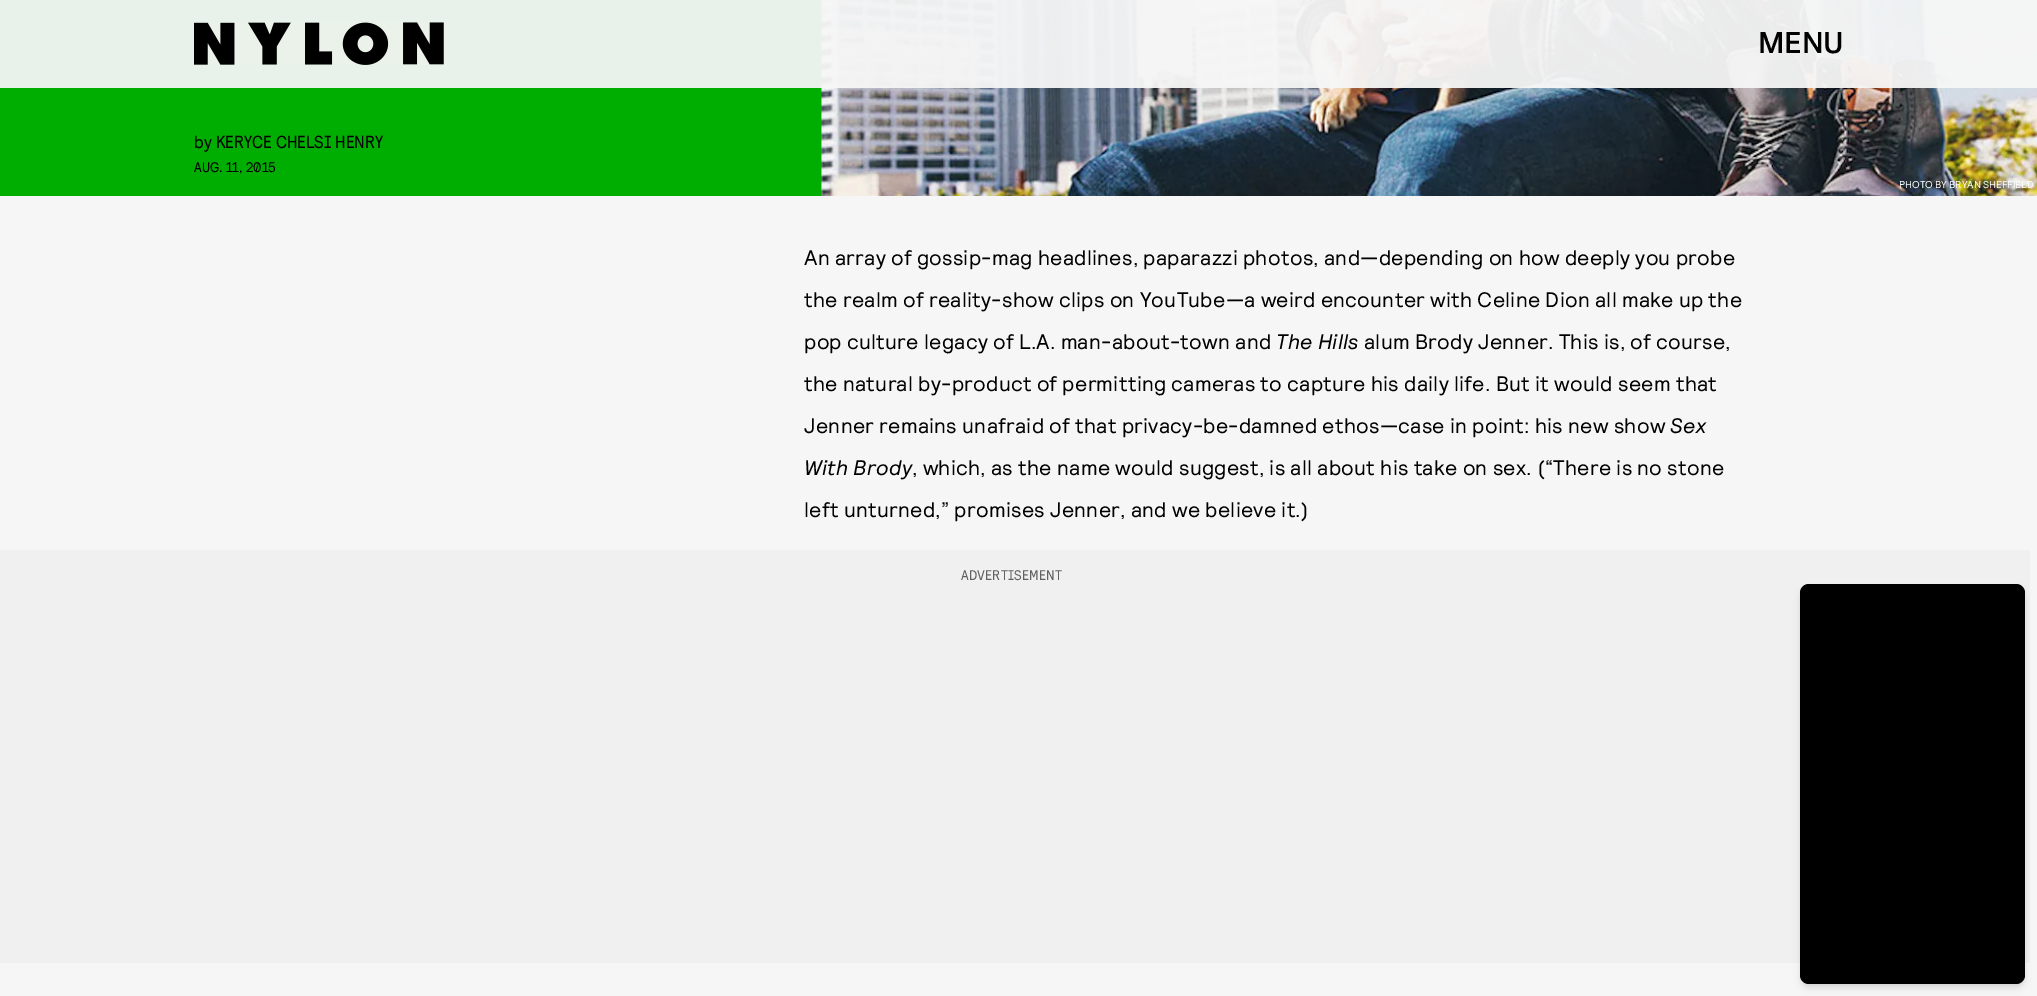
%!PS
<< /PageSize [2037 996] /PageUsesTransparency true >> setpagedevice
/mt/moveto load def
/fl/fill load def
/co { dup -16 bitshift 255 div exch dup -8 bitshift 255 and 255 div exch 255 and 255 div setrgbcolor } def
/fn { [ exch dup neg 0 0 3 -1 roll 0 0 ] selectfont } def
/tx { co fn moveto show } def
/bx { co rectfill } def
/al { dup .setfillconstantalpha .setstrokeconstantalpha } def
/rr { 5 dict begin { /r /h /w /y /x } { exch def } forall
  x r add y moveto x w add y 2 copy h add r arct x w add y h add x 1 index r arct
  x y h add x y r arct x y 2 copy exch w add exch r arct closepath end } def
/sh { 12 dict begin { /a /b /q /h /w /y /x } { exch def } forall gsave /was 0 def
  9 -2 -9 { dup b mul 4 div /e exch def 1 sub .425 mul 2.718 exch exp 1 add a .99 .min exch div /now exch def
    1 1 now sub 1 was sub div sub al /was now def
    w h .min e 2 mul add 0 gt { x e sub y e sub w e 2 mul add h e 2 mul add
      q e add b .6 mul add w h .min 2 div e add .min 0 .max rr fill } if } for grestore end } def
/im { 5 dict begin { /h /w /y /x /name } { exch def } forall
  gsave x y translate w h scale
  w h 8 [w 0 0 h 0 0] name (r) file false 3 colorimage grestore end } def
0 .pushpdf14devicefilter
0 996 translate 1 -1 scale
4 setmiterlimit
0 0 2037 996 16#F6F6F6 bx
0 0 822 196 16#00AE01 bx
(media/2.raw) 821 0 1216 196 im
0.95 al
0 0 2037 88 16#F6F6F6 bx
1 al
(media/1.raw) 194 22 250 43 im
0 550 2030 413 16#F0F0F0 bx
16#000000 co
1803 589 220 395 6 2.5 .1 sh
1801 590 223 398 8 4 .1 sh
1800 584 225 400 9 rr fl
(MENU) 1758 53 /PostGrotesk-Medium 30 16#000000 tx
(by KERYCE CHELSI HENRY) 194 148 /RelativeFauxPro-Regular 17.5 16#000000 tx
(AUG. 11, 2015) 194 172 /RelativeFauxPro-Regular 14 16#000000 tx
(PHOTO BY BRYAN SHEFFIELD) 1899 188 /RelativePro-Regular 10 16#FFFFFF tx
/RelativePro-Regular 21 fn
16#000000 co
804 265 mt .25 0 (An array of gossip-mag headlines, paparazzi photos, and—depending on how deeply you probe) ashow
804 307 mt .25 0 (the realm of reality-show clips on YouTube—a weird encounter with Celine Dion all make up the) ashow
804 349 mt .25 0 (pop culture legacy of L.A. man-about-town and) ashow
/RelativePro-Italic 21 fn
1276 349 mt .25 0 (The Hills) ashow
/RelativePro-Regular 21 fn
1364 349 mt .25 0 (alum Brody Jenner. This is, of course,) ashow
804 391 mt .25 0 (the natural by-product of permitting cameras to capture his daily life. But it would seem that) ashow
804 433 mt .25 0 (Jenner remains unafraid of that privacy-be-damned ethos—case in point: his new show) ashow
/RelativePro-Italic 21 fn
1670 433 mt .25 0 (Sex) ashow
804 475 mt .25 0 (With Brody) ashow
/RelativePro-Regular 21 fn
912 475 mt .25 0 (, which, as the name would suggest, is all about his take on sex. \(“There is no stone) ashow
804 517 mt .25 0 (left unturned,” promises Jenner, and we believe it.\)) ashow
/RelativeFauxPro-Regular 14 fn
16#606060 co
961 580 mt .25 0 (ADVERTISEMENT) ashow
.poppdf14devicefilter showpage
